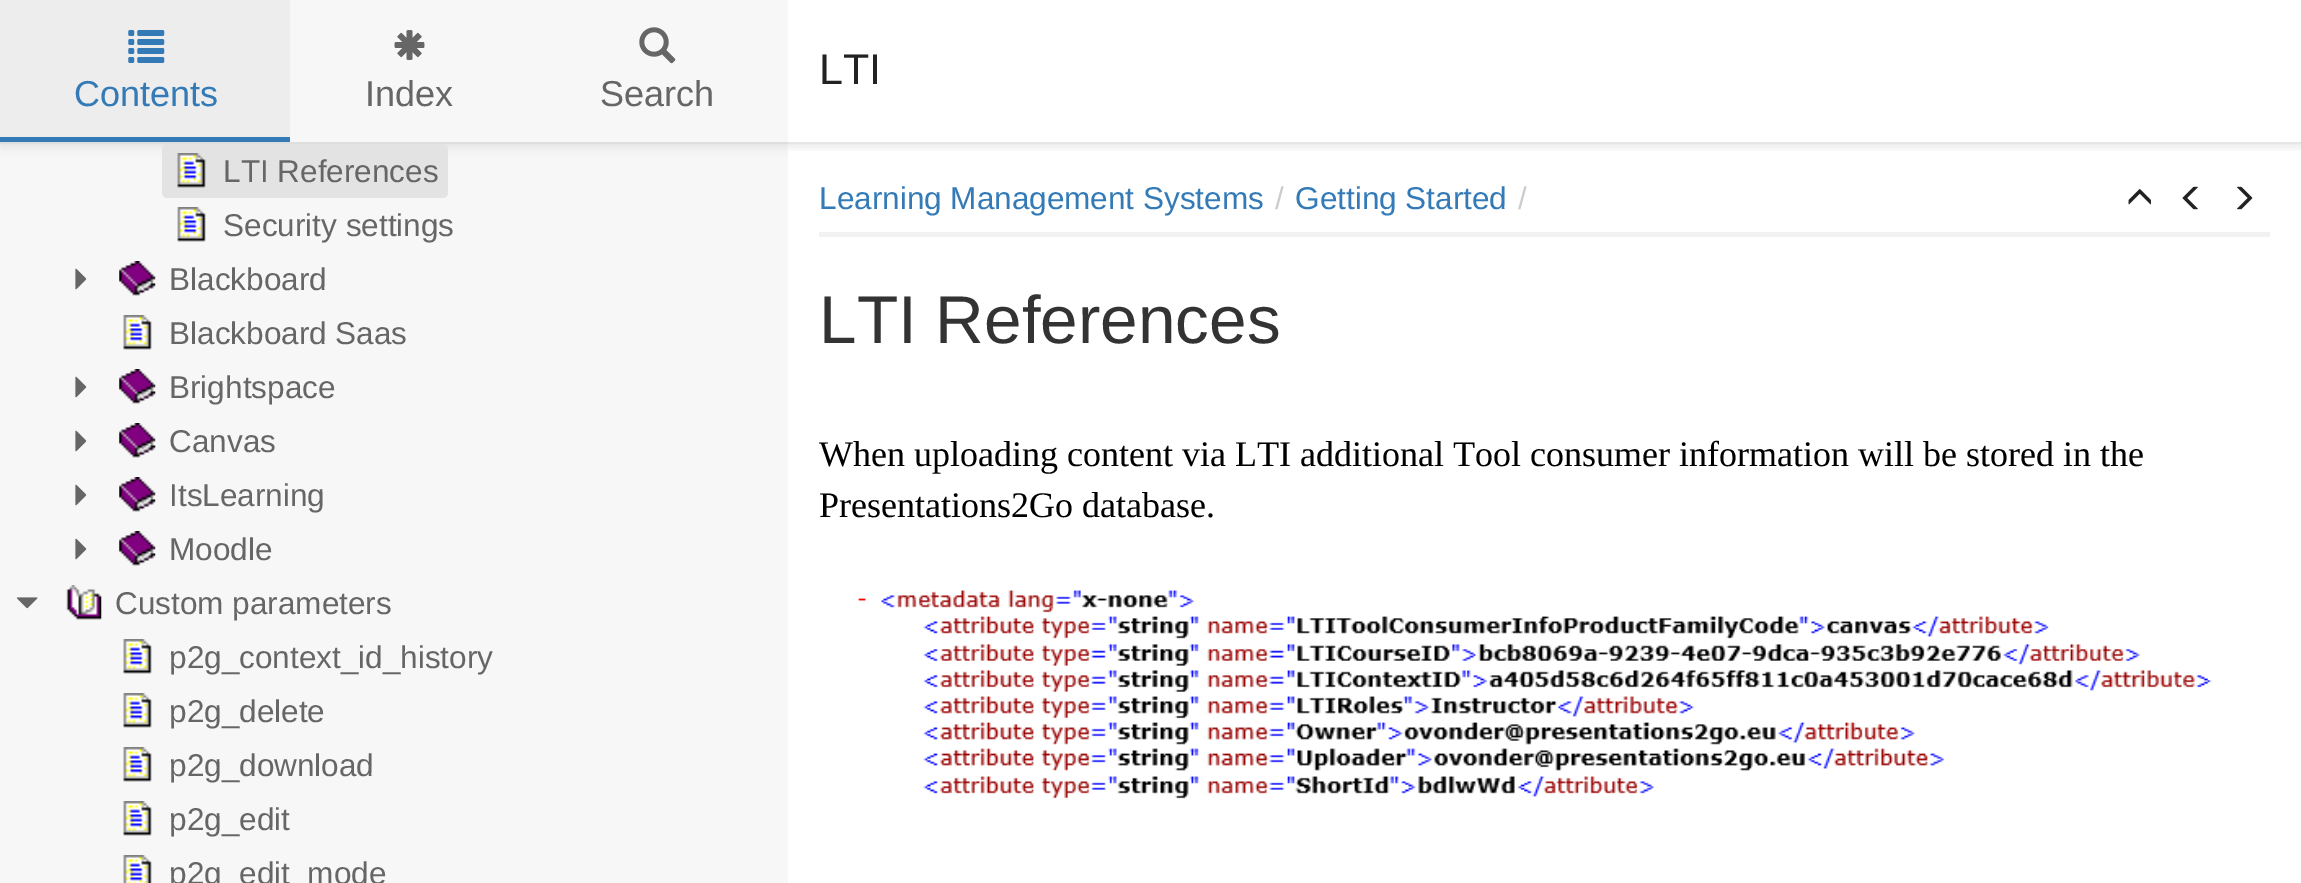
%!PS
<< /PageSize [2301 883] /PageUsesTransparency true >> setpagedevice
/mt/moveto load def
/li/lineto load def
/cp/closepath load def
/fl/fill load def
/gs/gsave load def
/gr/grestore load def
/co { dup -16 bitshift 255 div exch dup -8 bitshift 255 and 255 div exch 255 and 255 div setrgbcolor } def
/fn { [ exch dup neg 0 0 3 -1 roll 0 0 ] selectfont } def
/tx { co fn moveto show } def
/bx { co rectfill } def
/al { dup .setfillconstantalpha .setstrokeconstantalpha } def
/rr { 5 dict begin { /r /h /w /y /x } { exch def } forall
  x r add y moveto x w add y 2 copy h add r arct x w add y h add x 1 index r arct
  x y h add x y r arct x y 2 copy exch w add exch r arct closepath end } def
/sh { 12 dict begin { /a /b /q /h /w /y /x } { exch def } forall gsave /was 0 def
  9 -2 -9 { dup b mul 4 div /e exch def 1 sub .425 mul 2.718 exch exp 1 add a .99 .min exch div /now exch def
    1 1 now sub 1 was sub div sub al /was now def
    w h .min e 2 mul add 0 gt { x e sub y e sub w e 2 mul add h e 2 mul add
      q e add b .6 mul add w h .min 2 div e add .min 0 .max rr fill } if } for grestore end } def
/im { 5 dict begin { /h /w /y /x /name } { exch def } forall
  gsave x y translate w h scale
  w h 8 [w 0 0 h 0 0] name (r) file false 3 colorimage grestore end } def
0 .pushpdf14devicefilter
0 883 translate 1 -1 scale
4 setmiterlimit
0 0 2301 883 16#FFFFFF bx
gs
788 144 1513 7 rectclip
16#000000 co
0 2 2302 144 0 5.5 .1 sh
gr
788 142 1513 2 16#E6E6E6 bx
0 0 788 883 16#F7F7F7 bx
gs
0 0 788 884 rectclip
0 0 mt 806 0 li 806 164 li 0 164 li cp 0 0 mt 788 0 li 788 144 li 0 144 li cp eoclip newpath
16#000000 co
0 2 788 144 0 5.5 .1 sh
gr
0 142 788 2 16#DEDEDE bx
0 0 290 137 16#EDEDED bx
(media/1.raw) 128 30 37 33 im
0 137 290 5 16#337AB7 bx
(media/2.raw) 394 30 31 30 im
(media/3.raw) 639 27 37 37 im
16#E3E3E3 co
162 144 286 54 5 rr fl
(media/4.raw) 177 153 29 35 im
(media/5.raw) 177 207 29 35 im
(media/6.raw) 75 268 12 22 im
(media/7.raw) 119 261 37 35 im
(media/8.raw) 123 315 29 35 im
(media/6.raw) 75 376 12 22 im
(media/7.raw) 119 369 37 35 im
(media/6.raw) 75 430 12 22 im
(media/7.raw) 119 423 37 35 im
(media/6.raw) 75 484 12 22 im
(media/7.raw) 119 477 37 35 im
(media/6.raw) 75 538 12 22 im
(media/7.raw) 119 531 37 35 im
(media/9.raw) 16 597 22 12 im
(media/10.raw) 66 585 36 35 im
(media/8.raw) 123 639 29 35 im
(media/8.raw) 123 693 29 35 im
(media/8.raw) 123 747 29 35 im
(media/8.raw) 123 801 29 35 im
(media/11.raw) 123 855 29 28 im
819 232 1451 5 16#F2F2F2 bx
(media/12.raw) 2128 189 23 16 im
(media/13.raw) 2182 186 16 24 im
(media/14.raw) 2237 186 16 24 im
(media/15.raw) 858 590 1354 209 im
(LTI) 819 84 /LiberationSans-Regular 43 16#222222 tx
(Contents) 74 106 /LiberationSans-Regular 36 16#337AB7 tx
(Index) 365 106 /LiberationSans-Regular 36 16#666666 tx
(Search) 600 106 /LiberationSans-Regular 36 16#666666 tx
(LTI References) 223 182 /LiberationSans-Regular 31.5 16#666666 tx
(Security settings) 223 236 /LiberationSans-Regular 31.5 16#666666 tx
(Blackboard) 169 290 /LiberationSans-Regular 31.5 16#666666 tx
(Blackboard Saas) 169 344 /LiberationSans-Regular 31.5 16#666666 tx
(Brightspace) 169 398 /LiberationSans-Regular 31.5 16#666666 tx
(Canvas) 169 452 /LiberationSans-Regular 31.5 16#666666 tx
(ItsLearning) 169 506 /LiberationSans-Regular 31.5 16#666666 tx
(Moodle) 169 560 /LiberationSans-Regular 31.5 16#666666 tx
(Custom parameters) 115 614 /LiberationSans-Regular 31.5 16#666666 tx
(p2g_context_id_history) 169 668 /LiberationSans-Regular 31.5 16#666666 tx
(p2g_delete) 169 722 /LiberationSans-Regular 31.5 16#666666 tx
(p2g_download) 169 776 /LiberationSans-Regular 31.5 16#666666 tx
(p2g_edit) 169 830 /LiberationSans-Regular 31.5 16#666666 tx
(p2g_edit_mode) 169 884 /LiberationSans-Regular 31.5 16#666666 tx
(Learning Management Systems) 819 209 /LiberationSans-Regular 31.5 16#337AB7 tx
(/) 1275 209 /LiberationSans-Regular 31.5 16#CCCCCC tx
(Getting Started) 1295 209 /LiberationSans-Regular 31.5 16#337AB7 tx
(/) 1518 209 /LiberationSans-Regular 31.5 16#CCCCCC tx
(LTI References) 819 343 /LiberationSans-Regular 67.5 16#333333 tx
(When uploading content via LTI additional Tool consumer information will be stored in the) 819 466 /LiberationSerif-Regular 36 16#000000 tx
(Presentations2Go database.) 819 517 /LiberationSerif-Regular 36 16#000000 tx
.poppdf14devicefilter showpage
